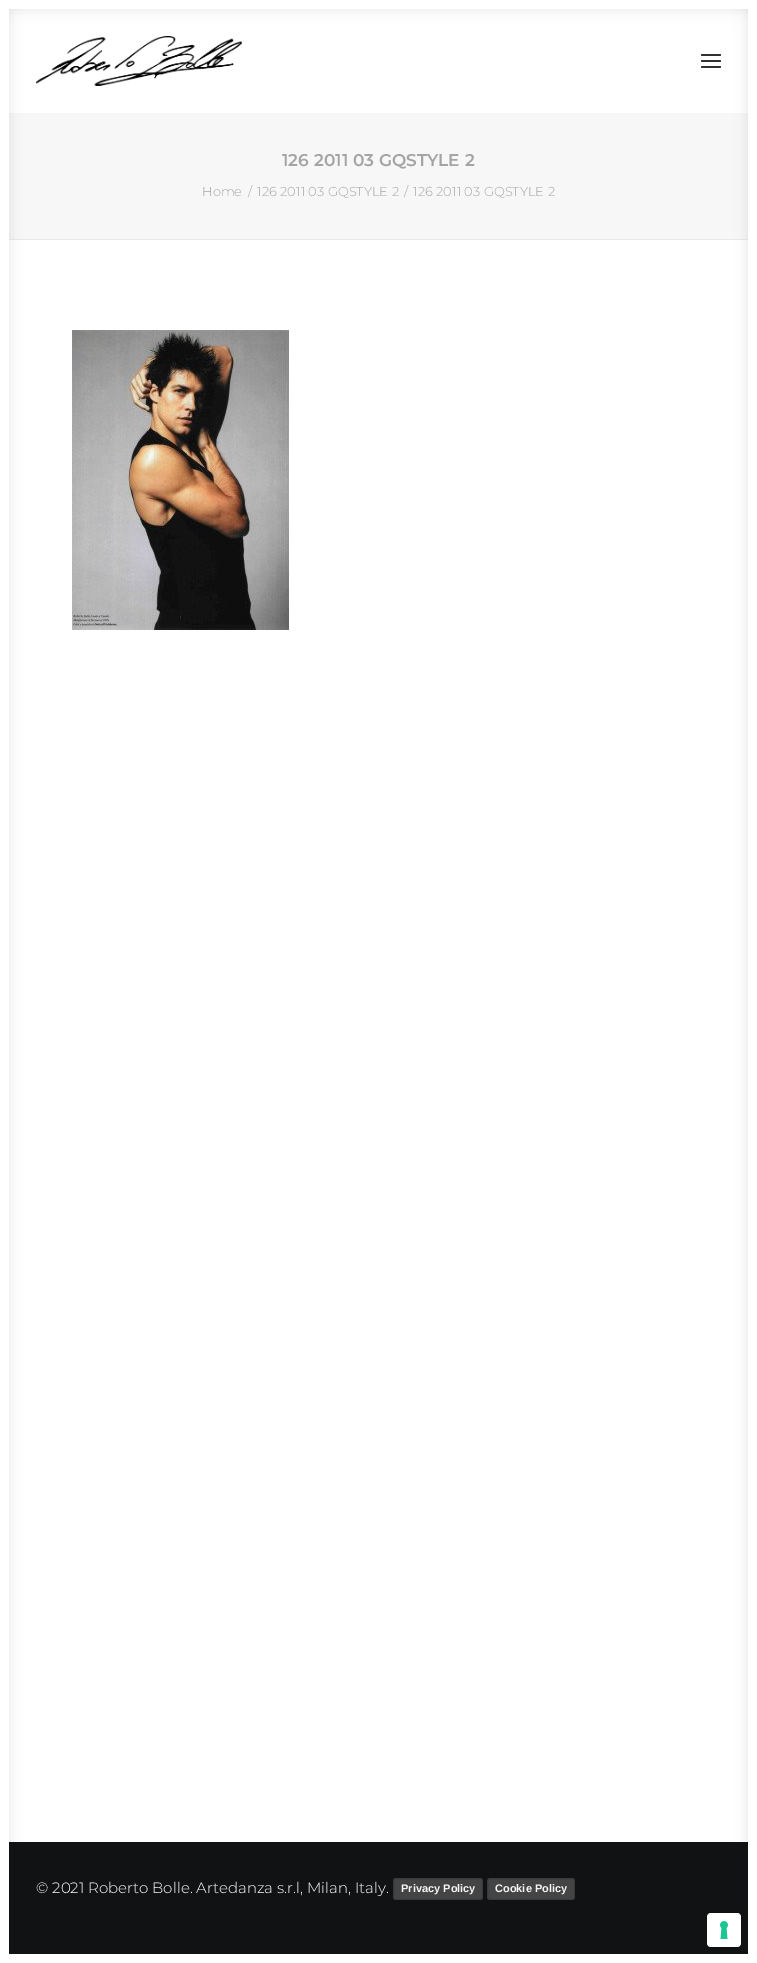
%!PS
<< /PageSize [757 1963] /PageUsesTransparency true >> setpagedevice
/fl/fill load def
/st/stroke load def
/co { dup -16 bitshift 255 div exch dup -8 bitshift 255 and 255 div exch 255 and 255 div setrgbcolor } def
/fn { [ exch dup neg 0 0 3 -1 roll 0 0 ] selectfont } def
/tx { co fn moveto show } def
/bx { co rectfill } def
/al { dup .setfillconstantalpha .setstrokeconstantalpha } def
/rr { 5 dict begin { /r /h /w /y /x } { exch def } forall
  x r add y moveto x w add y 2 copy h add r arct x w add y h add x 1 index r arct
  x y h add x y r arct x y 2 copy exch w add exch r arct closepath end } def
/sh { 12 dict begin { /a /b /q /h /w /y /x } { exch def } forall gsave /was 0 def
  9 -2 -9 { dup b mul 4 div /e exch def 1 sub .425 mul 2.718 exch exp 1 add a .99 .min exch div /now exch def
    1 1 now sub 1 was sub div sub al /was now def
    w h .min e 2 mul add 0 gt { x e sub y e sub w e 2 mul add h e 2 mul add
      q e add b .6 mul add w h .min 2 div e add .min 0 .max rr fill } if } for grestore end } def
/im { 5 dict begin { /h /w /y /x /name } { exch def } forall
  gsave x y translate w h scale
  w h 8 [w 0 0 h 0 0] name (r) file false 3 colorimage grestore end } def
0 .pushpdf14devicefilter
0 1963 translate 1 -1 scale
4 setmiterlimit
0 0 757 1963 16#FFFFFF bx
16#000000 co
0 0 757 9 0 7 .1 sh
9 113 739 126 16#F7F7F7 bx
9 239 739 1 16#EAEAEA bx
9 1842 739 112 16#101213 bx
16#000000 co
0 0 9 1963 0 7 .1 sh
0 0 9 1963 16#FFFFFF bx
16#000000 co
748 0 9 1963 0 7 .1 sh
9 0 739 9 16#FFFFFF bx
748 0 9 1954 16#FFFFFF bx
9 1954 748 9 16#FFFFFF bx
(media/1.raw) 36 36 206 50 im
16#303133 co
701 60 20 2 1 rr fl
701 54 20 2 1 rr fl
701 66 20 2 1 rr fl
(media/2.raw) 72 330 217 300 im
16#444444 co
393 1878 90 22 3 rr fl
0.15 al
16#000000 co
393.5 1878.5 89 21 2.5 rr st
1 al
16#444444 co
487 1878 88 22 3 rr fl
0.15 al
16#000000 co
487.5 1878.5 87 21 2.5 rr st
1 al
16#0E0F10 co
706.5 1912.5 35 35 4.5 rr st
16#FFFFFF co
707 1913 34 34 4 rr fl
(media/3.raw) 720 1921 8 18 im
(126 2011 03 GQSTYLE 2) 282 166 /Montserrat-SemiBold 17 16#A4A4A4 tx
(Home) 202 196 /Montserrat-Light 13 16#A4A4A4 tx
(/) 248 196 /Montserrat-Light 13 16#A4A4A4 tx
(126 2011 03 GQSTYLE 2) 257 196 /Montserrat-Light 13 16#A4A4A4 tx
(/) 404 196 /Montserrat-Light 13 16#A4A4A4 tx
(126 2011 03 GQSTYLE 2) 413 196 /Montserrat-Light 13 16#A4A4A4 tx
(© 2021 Roberto Bolle. Artedanza s.r.l, Milan, Italy.) 36 1893 /Montserrat-Light 15 16#FFFFFF tx
(Privacy Policy) 401 1892 /LiberationSans-Bold 11 16#F4F4F4 tx
(Cookie Policy) 495 1892 /LiberationSans-Bold 11 16#F4F4F4 tx
.poppdf14devicefilter showpage
